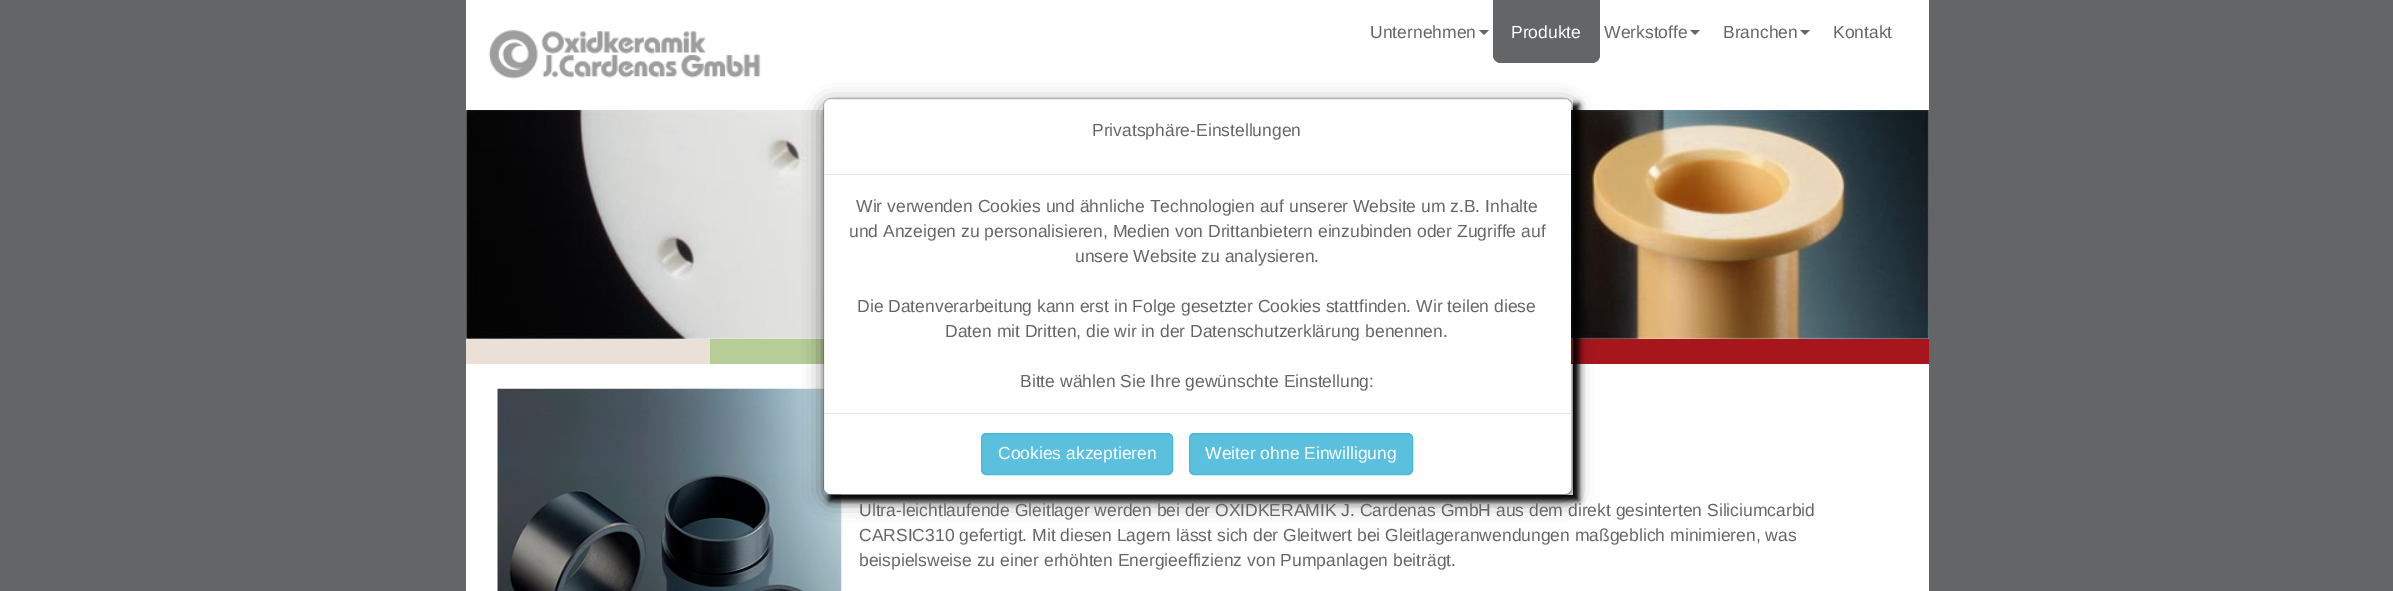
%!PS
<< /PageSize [2393 591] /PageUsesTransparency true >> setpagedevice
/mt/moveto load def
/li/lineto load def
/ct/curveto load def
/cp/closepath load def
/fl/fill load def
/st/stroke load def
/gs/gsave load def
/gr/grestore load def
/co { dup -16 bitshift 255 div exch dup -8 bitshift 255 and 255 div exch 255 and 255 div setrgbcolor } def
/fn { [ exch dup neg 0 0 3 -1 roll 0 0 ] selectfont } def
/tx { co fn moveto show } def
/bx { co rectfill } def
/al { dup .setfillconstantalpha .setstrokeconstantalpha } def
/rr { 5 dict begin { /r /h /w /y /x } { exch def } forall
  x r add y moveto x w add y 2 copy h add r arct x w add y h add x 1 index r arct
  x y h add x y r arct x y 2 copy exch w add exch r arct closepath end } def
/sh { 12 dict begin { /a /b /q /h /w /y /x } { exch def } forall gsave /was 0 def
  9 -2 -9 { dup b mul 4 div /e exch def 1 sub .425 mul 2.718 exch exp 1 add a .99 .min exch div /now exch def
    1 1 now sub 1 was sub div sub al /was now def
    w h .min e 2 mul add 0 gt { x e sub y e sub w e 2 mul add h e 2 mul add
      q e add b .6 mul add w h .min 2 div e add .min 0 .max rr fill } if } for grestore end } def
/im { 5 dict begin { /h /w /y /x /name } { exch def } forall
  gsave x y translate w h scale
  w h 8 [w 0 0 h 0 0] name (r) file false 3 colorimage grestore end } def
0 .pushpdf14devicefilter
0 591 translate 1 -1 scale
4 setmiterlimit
0 0 2393 591 16#646567 bx
466 0 1463 591 16#FFFFFF bx
(media/1.raw) 488 29 273 50 im
16#646567 co
1479 30 mt 1489 30 li 1484 35 li cp fl
1493 0 mt 1600 0 li 1600 55 li 1600 59.5 1596.5 63 1592 63 ct 1501 63 li 1496.5 63 1493 59.5 1493 55 ct cp fl
1690 30 mt 1700 30 li 1695 35 li cp fl
1800 30 mt 1810 30 li 1805 35 li cp fl
(media/2.raw) 466 110 1463 229 im
710 339 114 25 16#B6CD97 bx
1571 339 358 25 16#A7161D bx
(media/3.raw) 497 388 345 203 im
gs
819 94 mt 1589 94 li 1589 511 li 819 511 li cp 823 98 mt 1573 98 li 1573 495 li 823 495 li cp eoclip newpath
16#000000 co
829 104 750 397 0 3 1 sh
gr
16#000000 co
823 104 750 397 8 9.5 .5 sh
16#FFFFFF co
824 99 747 395 6 rr fl
0.2 al
16#000000 co
823.5 98.5 749 396 7.5 rr st
1 al
824 174 747 1 16#E5E5E5 bx
824 413 747 1 16#E5E5E5 bx
16#5BC0DE co
981.5 433.5 191 41 4.5 rr gs fl gr
16#46B8DA co
st
16#5BC0DE co
1189.5 433.5 223 41 4.5 rr gs fl gr
16#46B8DA co
st
466 339 244 25 16#EBE0D7 bx
(Unternehmen) 1370 38 /LiberationSans-Regular 17.5 16#646567 tx
(Produkte) 1511 38 /LiberationSans-Regular 17.5 16#FFFFFF tx
(Werkstoffe) 1604 38 /LiberationSans-Regular 17.5 16#646567 tx
(Branchen) 1723 38 /LiberationSans-Regular 17.5 16#646567 tx
(Kontakt) 1833 38 /LiberationSans-Regular 17.5 16#646567 tx
(Privatsphäre-Einstellungen) 1092 136 /LiberationSans-Regular 17.5 16#646567 tx
(Wir verwenden Cookies und ähnliche Technologien auf unserer Website um z.B. Inhalte) 856 212 /LiberationSans-Regular 17.5 16#646567 tx
(und Anzeigen zu personalisieren, Medien von Drittanbietern einzubinden oder Zugriffe auf) 849 237 /LiberationSans-Regular 17.5 16#646567 tx
(unsere Website zu analysieren.) 1075 262 /LiberationSans-Regular 17.5 16#646567 tx
(Die Datenverarbeitung kann erst in Folge gesetzter Cookies stattfinden. Wir teilen diese) 857 312 /LiberationSans-Regular 17.5 16#646567 tx
(Daten mit Dritten, die wir in der Datenschutzerklärung benennen.) 945 337 /LiberationSans-Regular 17.5 16#646567 tx
(Bitte wählen Sie Ihre gewünschte Einstellung:) 1020 387 /LiberationSans-Regular 17.5 16#646567 tx
(Cookies akzeptieren) 998 459 /LiberationSans-Regular 17.5 16#FFFFFF tx
(Weiter ohne Einwilligung) 1205 459 /LiberationSans-Regular 17.5 16#FFFFFF tx
(Ultra-leichtlaufende Gleitlager werden bei der OXIDKERAMIK J. Cardenas GmbH aus dem direkt gesinterten Siliciumcarbid) 859 516 /LiberationSans-Regular 17.5 16#646567 tx
(CARSIC310 gefertigt. Mit diesen Lagern lässt sich der Gleitwert bei Gleitlageranwendungen maßgeblich minimieren, was) 859 541 /LiberationSans-Regular 17.5 16#646567 tx
(beispielsweise zu einer erhöhten Energieeffizienz von Pumpanlagen beiträgt.) 859 566 /LiberationSans-Regular 17.5 16#646567 tx
.poppdf14devicefilter showpage
